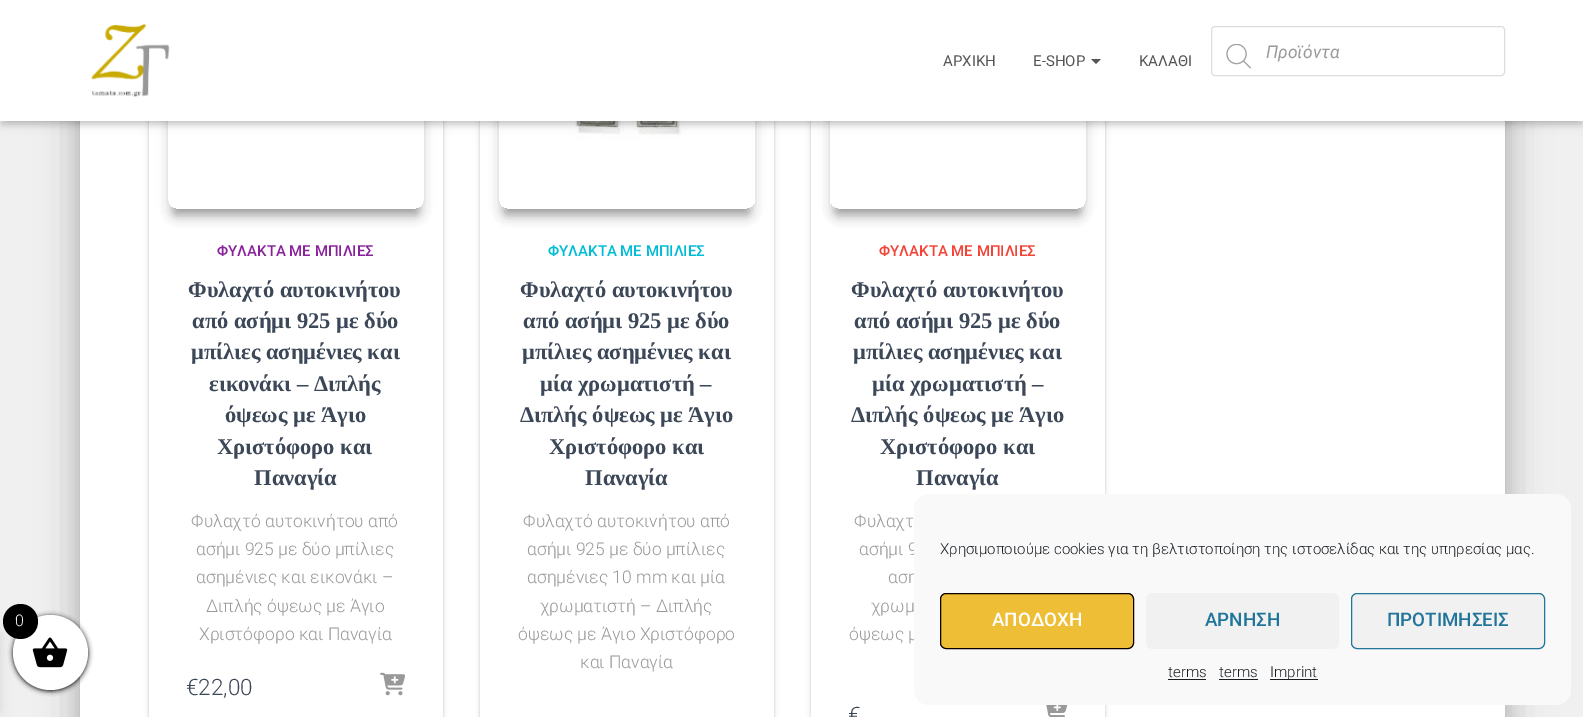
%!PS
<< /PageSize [1583 717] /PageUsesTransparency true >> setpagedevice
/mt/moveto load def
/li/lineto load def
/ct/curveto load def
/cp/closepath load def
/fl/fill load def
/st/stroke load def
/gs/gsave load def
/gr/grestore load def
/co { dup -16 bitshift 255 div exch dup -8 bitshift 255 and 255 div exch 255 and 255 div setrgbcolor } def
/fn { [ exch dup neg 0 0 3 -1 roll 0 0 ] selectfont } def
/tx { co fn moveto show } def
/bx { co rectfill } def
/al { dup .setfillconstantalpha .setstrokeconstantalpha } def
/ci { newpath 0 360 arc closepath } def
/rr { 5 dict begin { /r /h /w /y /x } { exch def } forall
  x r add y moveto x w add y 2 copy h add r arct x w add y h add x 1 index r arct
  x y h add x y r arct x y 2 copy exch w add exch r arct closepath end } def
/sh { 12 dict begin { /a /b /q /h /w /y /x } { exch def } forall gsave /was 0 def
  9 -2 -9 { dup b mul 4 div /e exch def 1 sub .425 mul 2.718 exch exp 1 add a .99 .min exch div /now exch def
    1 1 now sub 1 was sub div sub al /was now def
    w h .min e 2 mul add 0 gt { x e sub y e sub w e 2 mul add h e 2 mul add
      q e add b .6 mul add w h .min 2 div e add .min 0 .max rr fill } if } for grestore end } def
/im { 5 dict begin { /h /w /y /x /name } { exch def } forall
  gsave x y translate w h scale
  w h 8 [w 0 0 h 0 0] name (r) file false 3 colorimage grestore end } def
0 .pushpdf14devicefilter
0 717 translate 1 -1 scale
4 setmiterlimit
0 0 1583 717 16#F0F0F0 bx
16#000000 co
86 -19 1413 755 1 6 .2 sh
74 -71 1437 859 14 19 .12 sh
78 -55 1430 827 10 15 .14 sh
80 121 1425 596 16#FFFFFF bx
16#000000 co
149 -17 294 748 8 3 .12 sh
149 -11 294 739 8 1 .14 sh
149 121 294 596 16#FFFFFF bx
gs
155 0 mt 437 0 li 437 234 li 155 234 li cp 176 -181 mt 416 -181 li 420.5 -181 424 -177.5 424 -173 ct 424 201 li 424 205.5 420.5 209 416 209 ct 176 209 li 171.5 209 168 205.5 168 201 ct 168 -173 li 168 -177.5 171.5 -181 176 -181 ct cp eoclip newpath
16#000000 co
174 -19 244 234 1 6 .2 sh
gr
gs
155 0 mt 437 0 li 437 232 li 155 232 li cp 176 -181 mt 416 -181 li 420.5 -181 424 -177.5 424 -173 ct 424 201 li 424 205.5 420.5 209 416 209 ct 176 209 li 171.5 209 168 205.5 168 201 ct 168 -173 li 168 -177.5 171.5 -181 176 -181 ct cp eoclip newpath
16#000000 co
174 -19 244 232 1 6 .2 sh
gr
gs
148 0 mt 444 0 li 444 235 li 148 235 li cp 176 -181 mt 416 -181 li 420.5 -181 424 -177.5 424 -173 ct 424 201 li 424 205.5 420.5 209 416 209 ct 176 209 li 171.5 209 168 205.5 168 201 ct 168 -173 li 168 -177.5 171.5 -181 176 -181 ct cp eoclip newpath
16#000000 co
178 -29 236 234 0 9.5 .24 sh
gr
(media/3.raw) 248 121 98 1 im
16#000000 co
480 -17 294 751 8 3 .12 sh
480 -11 294 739 8 1 .14 sh
480 121 294 596 16#FFFFFF bx
gs
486 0 mt 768 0 li 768 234 li 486 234 li cp 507 -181 mt 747 -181 li 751.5 -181 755 -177.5 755 -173 ct 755 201 li 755 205.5 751.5 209 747 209 ct 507 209 li 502.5 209 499 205.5 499 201 ct 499 -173 li 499 -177.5 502.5 -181 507 -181 ct cp eoclip newpath
16#000000 co
505 -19 244 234 1 6 .2 sh
gr
gs
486 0 mt 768 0 li 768 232 li 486 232 li cp 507 -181 mt 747 -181 li 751.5 -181 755 -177.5 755 -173 ct 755 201 li 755 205.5 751.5 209 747 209 ct 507 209 li 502.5 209 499 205.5 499 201 ct 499 -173 li 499 -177.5 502.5 -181 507 -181 ct cp eoclip newpath
16#000000 co
505 -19 244 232 1 6 .2 sh
gr
gs
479 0 mt 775 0 li 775 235 li 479 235 li cp 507 -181 mt 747 -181 li 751.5 -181 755 -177.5 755 -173 ct 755 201 li 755 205.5 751.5 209 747 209 ct 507 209 li 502.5 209 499 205.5 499 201 ct 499 -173 li 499 -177.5 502.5 -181 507 -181 ct cp eoclip newpath
16#000000 co
509 -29 236 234 0 9.5 .24 sh
gr
(media/5.raw) 575 121 180 83 im
16#000000 co
811 -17 294 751 8 3 .12 sh
811 -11 294 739 8 1 .14 sh
811 121 294 596 16#FFFFFF bx
gs
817 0 mt 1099 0 li 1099 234 li 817 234 li cp 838 -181 mt 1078 -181 li 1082.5 -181 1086 -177.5 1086 -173 ct 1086 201 li 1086 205.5 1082.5 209 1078 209 ct 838 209 li 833.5 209 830 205.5 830 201 ct 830 -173 li 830 -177.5 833.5 -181 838 -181 ct cp eoclip newpath
16#000000 co
836 -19 244 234 1 6 .2 sh
gr
gs
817 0 mt 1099 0 li 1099 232 li 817 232 li cp 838 -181 mt 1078 -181 li 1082.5 -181 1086 -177.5 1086 -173 ct 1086 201 li 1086 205.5 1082.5 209 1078 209 ct 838 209 li 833.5 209 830 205.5 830 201 ct 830 -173 li 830 -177.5 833.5 -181 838 -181 ct cp eoclip newpath
16#000000 co
836 -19 244 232 1 6 .2 sh
gr
gs
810 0 mt 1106 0 li 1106 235 li 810 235 li cp 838 -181 mt 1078 -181 li 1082.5 -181 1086 -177.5 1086 -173 ct 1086 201 li 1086 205.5 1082.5 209 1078 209 ct 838 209 li 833.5 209 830 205.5 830 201 ct 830 -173 li 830 -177.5 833.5 -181 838 -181 ct cp eoclip newpath
16#000000 co
840 -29 236 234 0 9.5 .24 sh
gr
(media/6.raw) 830 121 186 83 im
16#000000 co
3 8 1578 116 0 3 .1 sh
0 1 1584 122 0 6 .12 sh
8 9 1568 106 0 6 .42 sh
0 0 1583 121 16#FFFFFF bx
(media/1.raw) 91 23 79 74 im
16#555555 co
1091 59 mt 1101 59 li 1096 64 li cp fl
16#DDDDDD co
1211.5 26.5 293 49 3.5 rr st
(media/2.raw) 1226 44 25 25 im
(media/4.raw) 380 672 25 24 im
(media/7.raw) 1046 705 22 12 im
16#000000 co
-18 634 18 77 0 6 .1 sh
13 616 75 75 37.5 2.5 1 sh
16#FFFFFF co
50.5 652.5 37.5 ci fl
(media/8.raw) 32 637 36 31 im
16#000000 co
20.5 621.5 17.5 ci fl
(ΑΡΧΙΚΗ) 943 66 /Roboto-Regular 15 16#555555 tx
(E-SHOP) 1033 66 /Roboto-Regular 15 16#555555 tx
(ΚΑΛΑΘΙ) 1139 66 /Roboto-Regular 15 16#555555 tx
(Προϊόντα) 1266 58 /Roboto-Italic 17.5 16#999999 tx
(ΦΥΛΑΚΤΑ ΜΕ ΜΠΙΛΙΕΣ) 217 256 /Roboto-Medium 15 16#89229B tx
(Φυλαχτό αυτοκινήτου) 188 297 /LiberationSerif-Bold 22.5 16#3C4858 tx
(από ασήμι 925 με δύο) 192 328 /LiberationSerif-Bold 22.5 16#3C4858 tx
(μπίλιες ασημένιες και) 191 359 /LiberationSerif-Bold 22.5 16#3C4858 tx
(εικονάκι – Διπλής) 209 391 /LiberationSerif-Bold 22.5 16#3C4858 tx
(όψεως με Άγιο) 225 422 /LiberationSerif-Bold 22.5 16#3C4858 tx
(Χριστόφορο και) 217 454 /LiberationSerif-Bold 22.5 16#3C4858 tx
(Παναγία) 254 485 /LiberationSerif-Bold 22.5 16#3C4858 tx
(Φυλαχτό αυτοκινήτου από) 191 527 /Roboto-Light 17.5 16#999999 tx
(ασήμι 925 με δύο μπίλιες) 196 555 /Roboto-Light 17.5 16#999999 tx
(ασημένιες και εικονάκι –) 196 583 /Roboto-Light 17.5 16#999999 tx
(Διπλής όψεως με Άγιο) 206 612 /Roboto-Light 17.5 16#999999 tx
(Χριστόφορο και Παναγία) 199 640 /Roboto-Light 17.5 16#999999 tx
(€22,00) 186 695 /Roboto-Light 22.5 16#3C4858 tx
(ΦΥΛΑΚΤΑ ΜΕ ΜΠΙΛΙΕΣ) 548 256 /Roboto-Medium 15 16#00BCD4 tx
(Φυλαχτό αυτοκινήτου) 520 297 /LiberationSerif-Bold 22.5 16#3C4858 tx
(από ασήμι 925 με δύο) 523 328 /LiberationSerif-Bold 22.5 16#3C4858 tx
(μπίλιες ασημένιες και) 522 359 /LiberationSerif-Bold 22.5 16#3C4858 tx
(μία χρωματιστή –) 540 391 /LiberationSerif-Bold 22.5 16#3C4858 tx
(Διπλής όψεως με Άγιο) 520 422 /LiberationSerif-Bold 22.5 16#3C4858 tx
(Χριστόφορο και) 549 454 /LiberationSerif-Bold 22.5 16#3C4858 tx
(Παναγία) 585 485 /LiberationSerif-Bold 22.5 16#3C4858 tx
(Φυλαχτό αυτοκινήτου από) 523 527 /Roboto-Light 17.5 16#999999 tx
(ασήμι 925 με δύο μπίλιες) 527 555 /Roboto-Light 17.5 16#999999 tx
(ασημένιες 10 mm και μία) 527 583 /Roboto-Light 17.5 16#999999 tx
(χρωματιστή – Διπλής) 540 612 /Roboto-Light 17.5 16#999999 tx
(όψεως με Άγιο Χριστόφορο) 518 640 /Roboto-Light 17.5 16#999999 tx
(και Παναγία) 580 668 /Roboto-Light 17.5 16#999999 tx
(ΦΥΛΑΚΤΑ ΜΕ ΜΠΙΛΙΕΣ) 879 256 /Roboto-Medium 15 16#F44336 tx
(Φυλαχτό αυτοκινήτου) 851 297 /LiberationSerif-Bold 22.5 16#3C4858 tx
(από ασήμι 925 με δύο) 854 328 /LiberationSerif-Bold 22.5 16#3C4858 tx
(μπίλιες ασημένιες και) 853 359 /LiberationSerif-Bold 22.5 16#3C4858 tx
(μία χρωματιστή –) 872 391 /LiberationSerif-Bold 22.5 16#3C4858 tx
(Διπλής όψεως με Άγιο) 851 422 /LiberationSerif-Bold 22.5 16#3C4858 tx
(Χριστόφορο και) 880 454 /LiberationSerif-Bold 22.5 16#3C4858 tx
(Παναγία) 916 485 /LiberationSerif-Bold 22.5 16#3C4858 tx
(Φυλαχτ) 854 527 /Roboto-Light 17.5 16#999999 tx
(ασήμι 9) 859 555 /Roboto-Light 17.5 16#999999 tx
(αση) 888 583 /Roboto-Light 17.5 16#999999 tx
(χρωμ) 871 612 /Roboto-Light 17.5 16#999999 tx
(όψεως μ) 849 640 /Roboto-Light 17.5 16#999999 tx
(€) 848 723 /Roboto-Light 22.5 16#3C4858 tx
(0) 15 626 /Roboto-Light 16 16#FFFFFF tx
16#F9F9F9 co
914 494 657 211 15 rr fl
(Χρησιμοποιούμε cookies για τη βελτιστοποίηση της ιστοσελίδας και της υπηρεσίας μας.) 940 554 /Roboto-Light 15 16#191E23 tx
16#EFBE37 co
940.5 593.5 193 55 5.5 rr gs fl gr
16#0A0000 co
st
(ΑΠΟΔΟΧΗ) 992 626 /Roboto-Medium 18.75 16#FFFFFF tx
16#F1F1F1 co
1146 593 193 56 6 rr fl
(ΑΡΝΗΣΗ) 1205 626 /Roboto-Medium 18.75 16#21759B tx
16#F1F1F1 co
1351.5 593.5 193 55 5.5 rr gs fl gr
16#21759B co
st
(ΠΡΟΤΙΜΗΣΕΙΣ) 1387 626 /Roboto-Medium 18.75 16#21759B tx
(terms) 1168 677 /Roboto-Light 15 16#191E23 tx
1168 679 38 1 16#191E23 bx
(terms) 1219 677 /Roboto-Light 15 16#191E23 tx
1219 679 39 1 16#191E23 bx
1270 679 48 1 16#191E23 bx
(Imprint) 1270 677 /Roboto-Light 15 16#191E23 tx
.poppdf14devicefilter showpage
